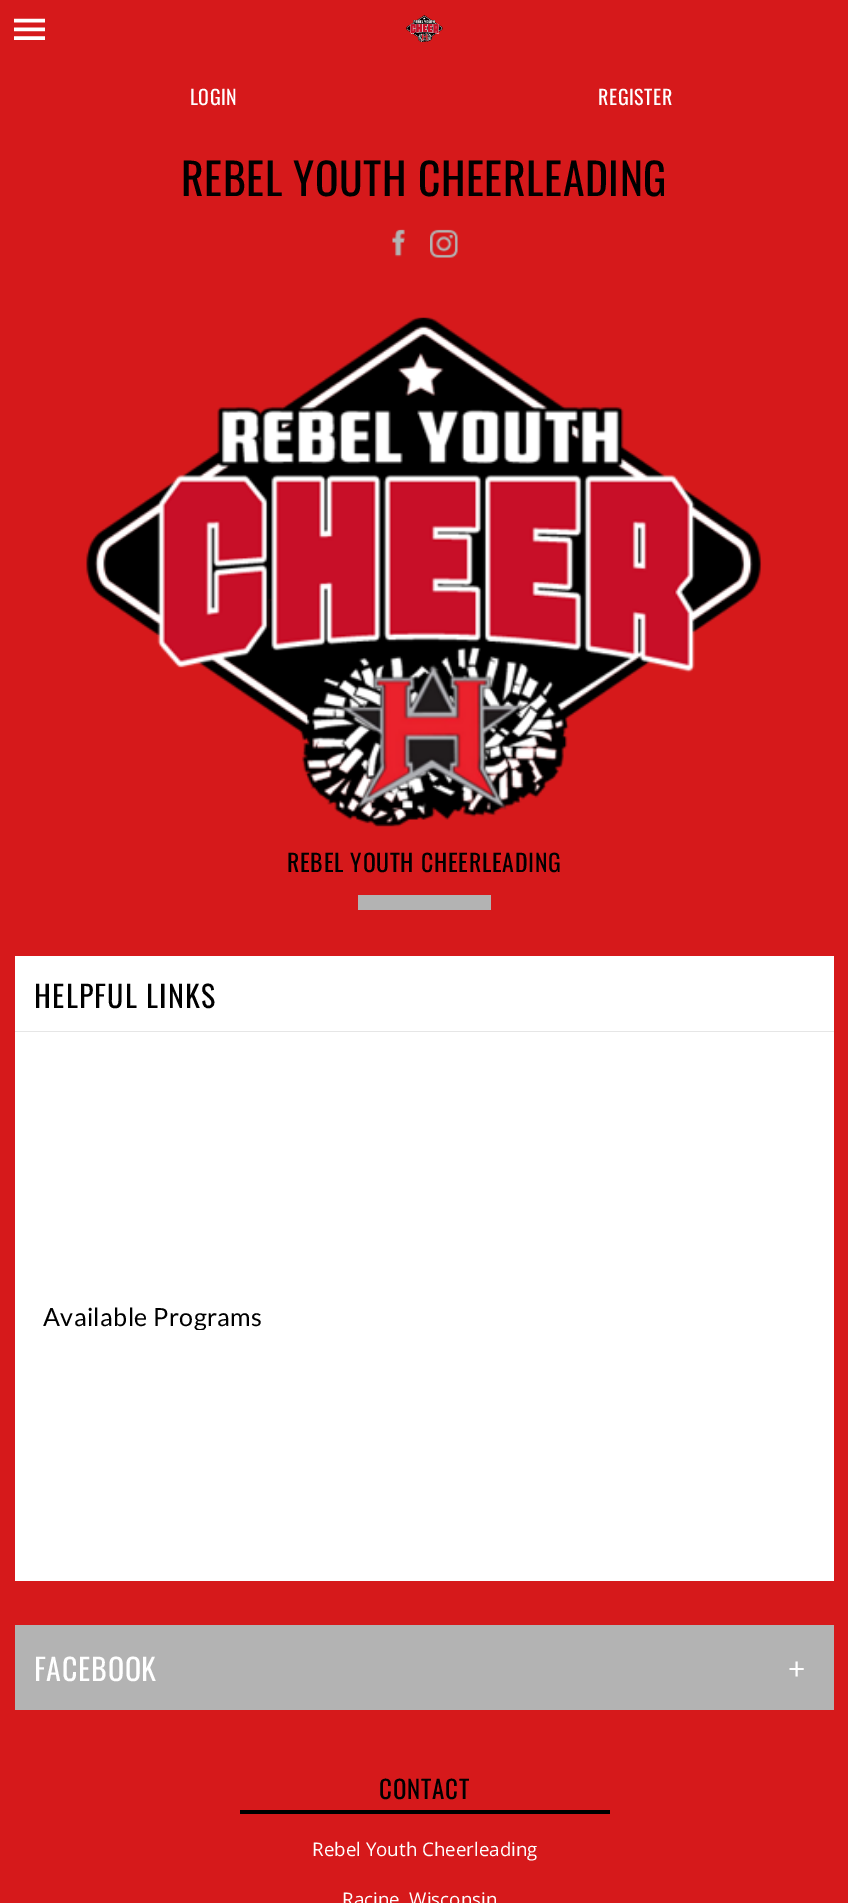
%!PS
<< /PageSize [848 1903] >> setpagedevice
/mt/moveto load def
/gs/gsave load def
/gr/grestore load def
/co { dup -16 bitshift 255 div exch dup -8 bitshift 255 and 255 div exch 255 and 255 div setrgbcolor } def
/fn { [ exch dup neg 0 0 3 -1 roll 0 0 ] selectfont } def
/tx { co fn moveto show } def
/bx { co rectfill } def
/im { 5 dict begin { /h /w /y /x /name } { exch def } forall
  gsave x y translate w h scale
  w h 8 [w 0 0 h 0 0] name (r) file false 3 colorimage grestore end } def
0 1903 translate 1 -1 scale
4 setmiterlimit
0 0 848 1903 16#D6191B bx
(media/1.raw) 14 18 31 22 im
(media/2.raw) 406 15 37 27 im
(media/3.raw) 392 229 13 28 im
(media/4.raw) 430 229 28 29 im
(media/5.raw) 86 317 676 510 im
358 895 133 15 16#B3B3B3 bx
15 956 819 625 16#FFFFFF bx
15 1031 819 1 16#E6E6E6 bx
15 1625 819 85 16#B3B3B3 bx
240 1810 370 4 16#000000 bx
/Oswald-Regular 20 fn
16#FFFFFF co
190 105 mt .5 0 (LOGIN) ashow
598 105 mt .5 0 (REGISTER) ashow
/Oswald-Regular 43.75 fn
16#000000 co
181 196 mt .6 0 (REBEL YOUTH CHEERLEADING) ashow
/Oswald-Regular 23.75 fn
287 872 mt .75 0 (REBEL YOUTH CHEERLEADING) ashow
/Oswald-Regular 30 fn
34 1008 mt 1.25 0 (HELPFUL LINKS) ashow
gs
43 1305 218 25 rectclip
/Lato-Regular 25 fn
43 1326 mt .4 0 (Available Programs) ashow
gr
16#FFFFFF co
34 1681 mt .75 0 (FACEBOOK) ashow
/Lato-Regular 30 fn
788 1679 mt .75 0 (+) ashow
/Oswald-Regular 25 fn
16#000000 co
379 1799 mt .75 0 (CONTACT) ashow
(Rebel Youth Cheerleading) 312 1856 /OpenSans-Regular 18.75 16#FFFFFF tx
(Racine, Wisconsin) 342 1906 /OpenSans-Regular 18.75 16#FFFFFF tx
showpage
